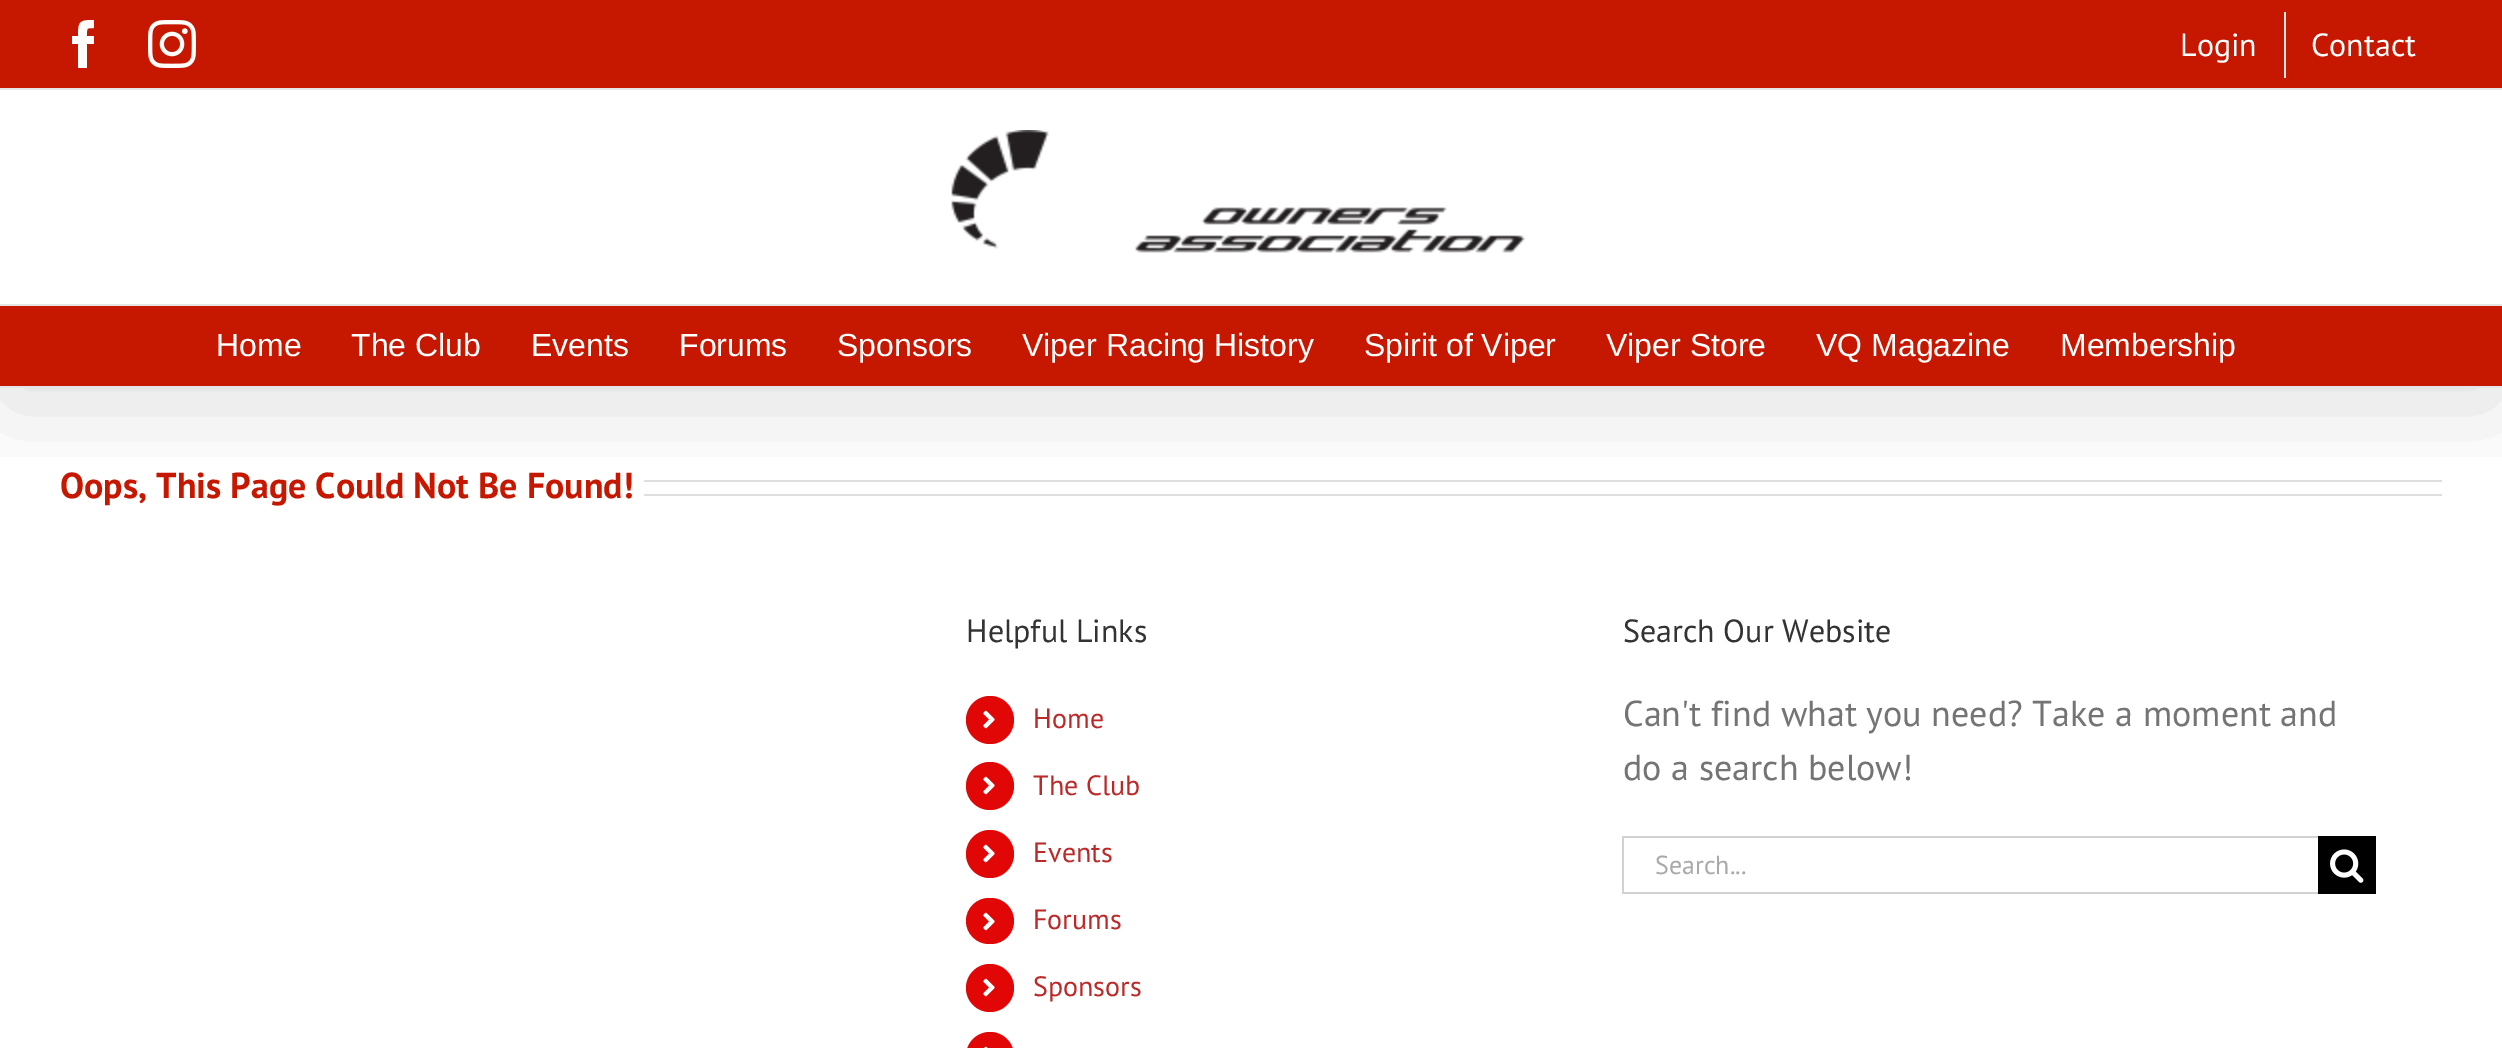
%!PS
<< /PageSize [2502 1048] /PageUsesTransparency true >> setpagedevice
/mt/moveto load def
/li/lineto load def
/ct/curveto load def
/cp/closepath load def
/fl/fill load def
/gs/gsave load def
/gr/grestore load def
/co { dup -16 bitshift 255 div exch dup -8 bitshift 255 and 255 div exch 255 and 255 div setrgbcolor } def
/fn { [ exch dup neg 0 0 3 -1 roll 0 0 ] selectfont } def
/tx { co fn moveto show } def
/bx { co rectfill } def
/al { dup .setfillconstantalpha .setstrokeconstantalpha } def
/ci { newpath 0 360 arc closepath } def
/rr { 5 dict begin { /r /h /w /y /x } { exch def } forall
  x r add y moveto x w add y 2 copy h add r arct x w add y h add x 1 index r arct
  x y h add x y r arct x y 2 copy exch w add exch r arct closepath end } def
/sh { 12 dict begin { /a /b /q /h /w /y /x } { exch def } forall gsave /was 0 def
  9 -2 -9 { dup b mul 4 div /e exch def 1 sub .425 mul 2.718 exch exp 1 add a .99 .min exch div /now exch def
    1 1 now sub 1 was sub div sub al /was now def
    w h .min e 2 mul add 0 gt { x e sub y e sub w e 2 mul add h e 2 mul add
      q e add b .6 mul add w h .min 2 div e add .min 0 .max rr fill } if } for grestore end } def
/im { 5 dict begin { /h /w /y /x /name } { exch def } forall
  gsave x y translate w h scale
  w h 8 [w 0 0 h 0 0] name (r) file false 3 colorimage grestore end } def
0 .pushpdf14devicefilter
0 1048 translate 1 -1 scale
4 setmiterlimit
0 0 2502 1048 16#FFFFFF bx
644 480 1798 2 16#E0DEDE bx
644 494 1798 2 16#E0DEDE bx
gs
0 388 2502 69 rectclip
16#000000 co
4 24 2494 380 0 50 .14 sh
gr
0 0 2502 88 16#C61700 bx
0 88 2502 2 16#E5E5E5 bx
16#FFFCFC co
87 68 mt 78 68 li 78 44 li 72 44 li 72 36 li 78 36 li 78 21 80 20 94 20 ct 94 28 li 86 28 87 28 87 36 ct 94 36 li 94 44 li 87 44 li cp fl
(media/1.raw) 148 20 48 48 im
2284 12 2 66 16#E5E5E5 bx
0 304 2502 2 16#E5E5E5 bx
(media/2.raw) 951 130 574 123 im
0 306 2502 80 16#C61700 bx
0 386 2502 2 16#E5E5E5 bx
16#E10707 co
990 720 24 ci fl
(media/3.raw) 983 710 12 19 im
990 786 24 ci fl
(media/3.raw) 983 776 12 19 im
990 854 24 ci fl
(media/3.raw) 983 844 12 19 im
966 898 48 46 23 rr fl
(media/3.raw) 983 912 12 19 im
990 988 24 ci fl
(media/3.raw) 983 978 12 19 im
966 1032 48 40 24 rr fl
(media/4.raw) 984 1046 4 2 im
1622 836 696 2 16#D2D2D2 bx
1622 892 696 2 16#D2D2D2 bx
1622 836 2 58 16#D2D2D2 bx
2318 836 58 58 16#000000 bx
(media/5.raw) 2330 849 34 34 im
(Login) 2180 56 /PTSans-Regular 32 16#FFFFFF tx
(Contact) 2311 56 /PTSans-Regular 32 16#FFFFFF tx
(Home) 216 356 /LiberationSans-Regular 32 16#FFFFFF tx
(The Club) 351 356 /LiberationSans-Regular 32 16#FFFFFF tx
(Events) 531 356 /LiberationSans-Regular 32 16#FFFFFF tx
(Forums) 679 356 /LiberationSans-Regular 32 16#FFFFFF tx
(Sponsors) 837 356 /LiberationSans-Regular 32 16#FFFFFF tx
(Viper Racing History) 1022 356 /LiberationSans-Regular 32 16#FFFFFF tx
(Spirit of Viper) 1364 356 /LiberationSans-Regular 32 16#FFFFFF tx
(Viper Store) 1606 356 /LiberationSans-Regular 32 16#FFFFFF tx
(VQ Magazine) 1816 356 /LiberationSans-Regular 32 16#FFFFFF tx
(Membership) 2060 356 /LiberationSans-Regular 32 16#FFFFFF tx
(Oops, This Page Could Not Be Found!) 60 498 /PTSans-Bold 36 16#C61700 tx
(Helpful Links) 966 642 /PTSans-Regular 32 16#333333 tx
(Home) 1033 728 /PTSans-Regular 28 16#BC2929 tx
(The Club) 1033 795 /PTSans-Regular 28 16#BC2929 tx
(Events) 1033 862 /PTSans-Regular 28 16#BC2929 tx
(Forums) 1033 929 /PTSans-Regular 28 16#BC2929 tx
(Sponsors) 1033 996 /PTSans-Regular 28 16#BC2929 tx
(Search Our Website) 1623 642 /PTSans-Regular 32 16#333333 tx
(Can't find what you need? Take a moment and) 1623 726 /PTSans-Regular 36 16#747474 tx
(do a search below!) 1623 780 /PTSans-Regular 36 16#747474 tx
(Search...) 1655 874 /PTSans-Regular 26 16#AAA9A9 tx
.poppdf14devicefilter showpage
